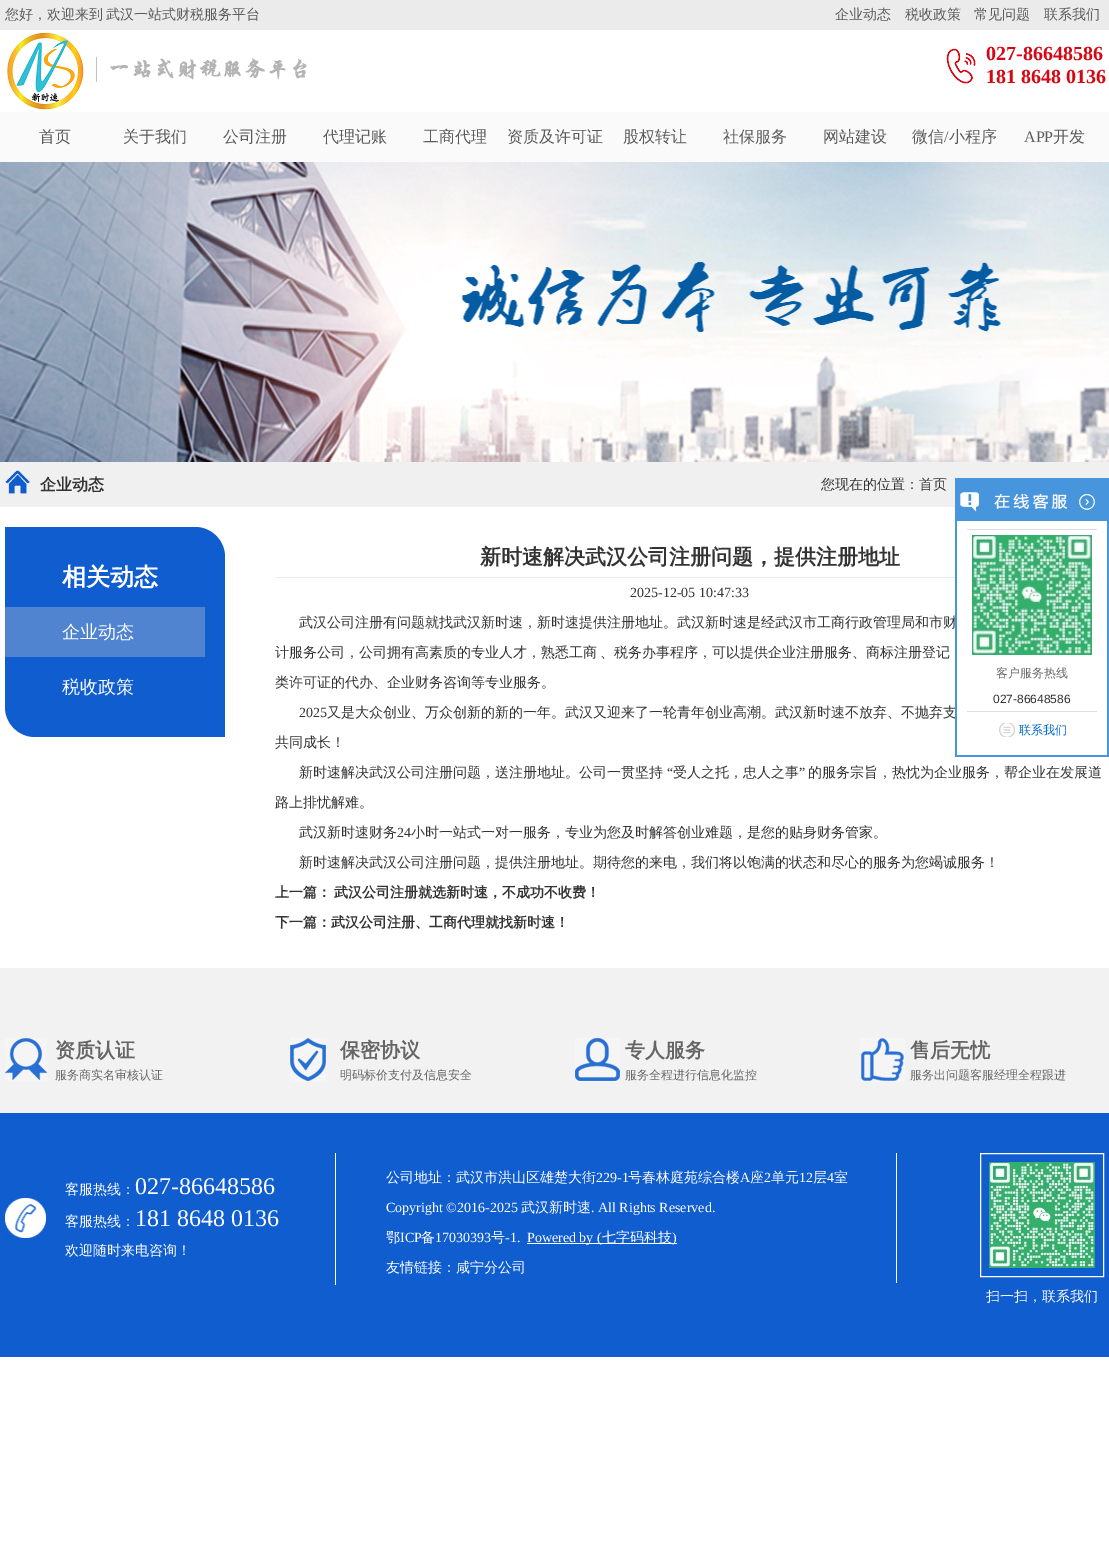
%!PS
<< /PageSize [1109 1543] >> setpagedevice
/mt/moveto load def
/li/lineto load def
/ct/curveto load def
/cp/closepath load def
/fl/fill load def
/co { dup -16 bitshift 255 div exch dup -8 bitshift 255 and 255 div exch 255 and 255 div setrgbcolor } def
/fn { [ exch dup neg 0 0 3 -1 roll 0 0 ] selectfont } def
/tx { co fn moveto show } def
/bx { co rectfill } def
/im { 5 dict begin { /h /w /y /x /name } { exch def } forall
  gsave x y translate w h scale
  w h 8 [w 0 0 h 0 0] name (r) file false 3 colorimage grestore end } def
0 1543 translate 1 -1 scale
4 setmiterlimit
0 0 1109 1543 16#FFFFFF bx
0 0 1109 30 16#EBEBEB bx
(media/1.raw) 7 32 77 78 im
(media/2.raw) 96 57 211 25 im
(media/3.raw) 946 48 30 37 im
0 112 1109 50 16#FAFAFA bx
(media/4.raw) 0 162 1109 300 im
0 462 1109 45 16#F0F0F0 bx
(media/5.raw) 5 470 25 24 im
16#0F5DCE co
5 527 mt 195 527 li 211.5 527 225 540.5 225 557 ct 225 737 li 35 737 li 18.5 737 5 723.5 5 707 ct cp fl
5 607 200 50 16#5084D1 bx
275 577 680 1 16#EBEBEC bx
(media/6.raw) 955 478 154 46 im
(media/7.raw) 1079 494 16 16 im
(media/11.raw) 955 749 154 8 im
0 968 1109 145 16#F2F2F2 bx
(media/12.raw) 5 1038 42 43 im
(media/13.raw) 290 1038 36 44 im
(media/14.raw) 575 1038 45 44 im
(media/15.raw) 860 1038 45 44 im
0 1113 1109 244 16#0F5DCE bx
(media/16.raw) 5 1198 41 40 im
335 1153 1 132 16#FFFFFF bx
896 1153 1 130 16#FFFFFF bx
527 1243 150 1 16#FFFFFF bx
980.5 1153.5 123 123 rectstroke
(media/17.raw) 989 1162 106 106 im
/WenQuanYiZenHei-Medium 14 fn
16#5A5A5A co
5 19 mt -1 0 32 (您好，欢迎来到 武汉一站式财税服务平台) widthshow
(企业动态) 835 19 /WenQuanYiZenHei-Medium 14 16#5A5A5A tx
(税收政策) 905 19 /WenQuanYiZenHei-Medium 14 16#5A5A5A tx
(常见问题) 974 19 /WenQuanYiZenHei-Medium 14 16#5A5A5A tx
(联系我们) 1044 19 /WenQuanYiZenHei-Medium 14 16#5A5A5A tx
(027-86648586) 986 60 /LiberationSerif-Bold 20 16#D60613 tx
(181 8648 0136) 986 83 /LiberationSerif-Bold 20 16#D60613 tx
(首页) 39 142 /WenQuanYiZenHei-Medium 16 16#5A5A5A tx
(关于我们) 123 142 /WenQuanYiZenHei-Medium 16 16#5A5A5A tx
(公司注册) 223 142 /WenQuanYiZenHei-Medium 16 16#5A5A5A tx
(代理记账) 323 142 /WenQuanYiZenHei-Medium 16 16#5A5A5A tx
(工商代理) 423 142 /WenQuanYiZenHei-Medium 16 16#5A5A5A tx
(资质及许可证) 507 142 /WenQuanYiZenHei-Medium 16 16#5A5A5A tx
(股权转让) 623 142 /WenQuanYiZenHei-Medium 16 16#5A5A5A tx
(社保服务) 723 142 /WenQuanYiZenHei-Medium 16 16#5A5A5A tx
(网站建设) 823 142 /WenQuanYiZenHei-Medium 16 16#5A5A5A tx
(微信) 912 142 /WenQuanYiZenHei-Medium 16 16#5A5A5A tx
(/) 944 142 /LiberationSerif-Regular 16 16#5A5A5A tx
(小程序) 949 142 /WenQuanYiZenHei-Medium 16 16#5A5A5A tx
(APP) 1024 142 /LiberationSerif-Regular 16 16#5A5A5A tx
(开发) 1053 142 /WenQuanYiZenHei-Medium 16 16#5A5A5A tx
(企业动态) 40 490 /WenQuanYiZenHei-Bold 16 16#333333 tx
(您现在的位置：首页) 821 489 /WenQuanYiZenHei-Medium 14 16#333333 tx
(相关动态) 62 585 /WenQuanYiZenHei-Bold 24 16#FFFFFF tx
(企业动态) 62 638 /WenQuanYiZenHei-Medium 18 16#FFFFFF tx
(税收政策) 62 693 /WenQuanYiZenHei-Medium 18 16#FFFFFF tx
(新时速解决武汉公司注册问题，提供注册地址) 480 564 /WenQuanYiZenHei-Bold 21 16#333333 tx
(2025-12-05 10:47:33) 630 597 /LiberationSerif-Regular 14 16#333333 tx
(武汉公司注册有问题就找武汉新时速，新时速提供注册地址。武汉新时速是经武汉市工商行政管理局和市财) 299 627 /WenQuanYiZenHei-Medium 14 16#333333 tx
275 657 mt -1 0 32 (计服务公司，公司拥有高素质的专业人才，熟悉工商 、税务办事程序，可以提供企业注册服务、商标注册登记) widthshow
(类许可证的代办、企业财务咨询等专业服务。) 275 687 /WenQuanYiZenHei-Medium 14 16#333333 tx
(2025) 299 717 /LiberationSerif-Regular 14 16#333333 tx
(又是大众创业、万众创新的新的一年。武汉又迎来了一轮青年创业高潮。武汉新时速不放弃、不抛弃支) 327 717 /WenQuanYiZenHei-Medium 14 16#333333 tx
(共同成长！) 275 747 /WenQuanYiZenHei-Medium 14 16#333333 tx
(新时速解决武汉公司注册问题，送注册地址。公司一贯坚持) 299 777 /WenQuanYiZenHei-Medium 14 16#333333 tx
(“) 667 777 /LiberationSerif-Regular 14 16#333333 tx
(受人之托，忠人之事) 673 777 /WenQuanYiZenHei-Medium 14 16#333333 tx
(”) 799 777 /LiberationSerif-Regular 14 16#333333 tx
(的服务宗旨，热忱为企业服务，帮企业在发展道) 808 777 /WenQuanYiZenHei-Medium 14 16#333333 tx
(路上排忧解难。) 275 807 /WenQuanYiZenHei-Medium 14 16#333333 tx
(武汉新时速财务) 299 837 /WenQuanYiZenHei-Medium 14 16#333333 tx
(24) 397 837 /LiberationSerif-Regular 14 16#333333 tx
(小时一站式一对一服务，专业为您及时解答创业难题，是您的贴身财务管家。) 411 837 /WenQuanYiZenHei-Medium 14 16#333333 tx
(新时速解决武汉公司注册问题，提供注册地址。期待您的来电，我们将以饱满的状态和尽心的服务为您竭诚服务！) 299 867 /WenQuanYiZenHei-Medium 14 16#333333 tx
(上一篇：) 275 897 /WenQuanYiZenHei-Bold 14 16#333333 tx
(武汉公司注册就选新时速，不成功不收费！) 334 897 /WenQuanYiZenHei-Bold 14 16#333333 tx
(下一篇：武汉公司注册、工商代理就找新时速！) 275 927 /WenQuanYiZenHei-Bold 14 16#333333 tx
(media/8.raw) 955 524 154 225 im
967 529 130 1 16#DDDDDD bx
967 711 130 1 16#DDDDDD bx
(media/9.raw) 972 535 120 120 im
(客户服务热线) 996 677 /WenQuanYiZenHei-Medium 12 16#666666 tx
(027-86648586) 993 703 /LiberationSans-Regular 12 16#333333 tx
(media/10.raw) 999 723 16 14 im
(联系我们) 1019 734 /WenQuanYiZenHei-Medium 12 16#0066CC tx
(资质认证) 55 1057 /WenQuanYiZenHei-Bold 20 16#666666 tx
(服务商实名审核认证) 55 1079 /WenQuanYiZenHei-Medium 12 16#666666 tx
(保密协议) 340 1057 /WenQuanYiZenHei-Bold 20 16#666666 tx
(明码标价支付及信息安全) 340 1079 /WenQuanYiZenHei-Medium 12 16#666666 tx
(专人服务) 625 1057 /WenQuanYiZenHei-Bold 20 16#666666 tx
(服务全程进行信息化监控) 625 1079 /WenQuanYiZenHei-Medium 12 16#666666 tx
(售后无忧) 910 1057 /WenQuanYiZenHei-Bold 20 16#666666 tx
(服务出问题客服经理全程跟进) 910 1079 /WenQuanYiZenHei-Medium 12 16#666666 tx
(客服热线：) 65 1194 /WenQuanYiZenHei-Medium 14 16#FFFFFF tx
(027-86648586) 135 1194 /LiberationSerif-Regular 24 16#FFFFFF tx
(客服热线：) 65 1226 /WenQuanYiZenHei-Medium 14 16#FFFFFF tx
(181 8648 0136) 135 1226 /LiberationSerif-Regular 24 16#FFFFFF tx
(欢迎随时来电咨询！) 65 1255 /WenQuanYiZenHei-Medium 14 16#FFFFFF tx
(公司地址：武汉市洪山区雄楚大街) 386 1182 /WenQuanYiZenHei-Medium 14 16#FFFFFF tx
(229-1) 596 1182 /LiberationSerif-Regular 14 16#FFFFFF tx
(号春林庭苑综合楼) 628 1182 /WenQuanYiZenHei-Medium 14 16#FFFFFF tx
(A) 740 1182 /LiberationSerif-Regular 14 16#FFFFFF tx
(座) 750 1182 /WenQuanYiZenHei-Medium 14 16#FFFFFF tx
(2) 764 1182 /LiberationSerif-Regular 14 16#FFFFFF tx
(单元) 771 1182 /WenQuanYiZenHei-Medium 14 16#FFFFFF tx
(12) 799 1182 /LiberationSerif-Regular 14 16#FFFFFF tx
(层) 813 1182 /WenQuanYiZenHei-Medium 14 16#FFFFFF tx
(4) 827 1182 /LiberationSerif-Regular 14 16#FFFFFF tx
(室) 834 1182 /WenQuanYiZenHei-Medium 14 16#FFFFFF tx
(Copyright ©2016-2025) 386 1212 /LiberationSerif-Regular 14 16#FFFFFF tx
(武汉新时速) 521 1212 /WenQuanYiZenHei-Medium 14 16#FFFFFF tx
(. All Rights Reserved.) 591 1212 /LiberationSerif-Regular 14 16#FFFFFF tx
(鄂) 386 1242 /WenQuanYiZenHei-Medium 14 16#FFFFFF tx
(ICP) 400 1242 /LiberationSerif-Regular 14 16#FFFFFF tx
(备) 421 1242 /WenQuanYiZenHei-Medium 14 16#FFFFFF tx
(17030393) 435 1242 /LiberationSerif-Regular 14 16#FFFFFF tx
(号) 491 1242 /WenQuanYiZenHei-Medium 14 16#FFFFFF tx
(-1.) 505 1242 /LiberationSerif-Regular 14 16#FFFFFF tx
(Powered by \() 527 1242 /LiberationSerif-Regular 14 16#FFFFFF tx
(七字码科技) 602 1242 /WenQuanYiZenHei-Medium 14 16#FFFFFF tx
(\)) 672 1242 /LiberationSerif-Regular 14 16#FFFFFF tx
(友情链接：咸宁分公司) 386 1272 /WenQuanYiZenHei-Medium 14 16#FFFFFF tx
(扫一扫，联系我们) 986 1301 /WenQuanYiZenHei-Medium 14 16#FFFFFF tx
showpage
